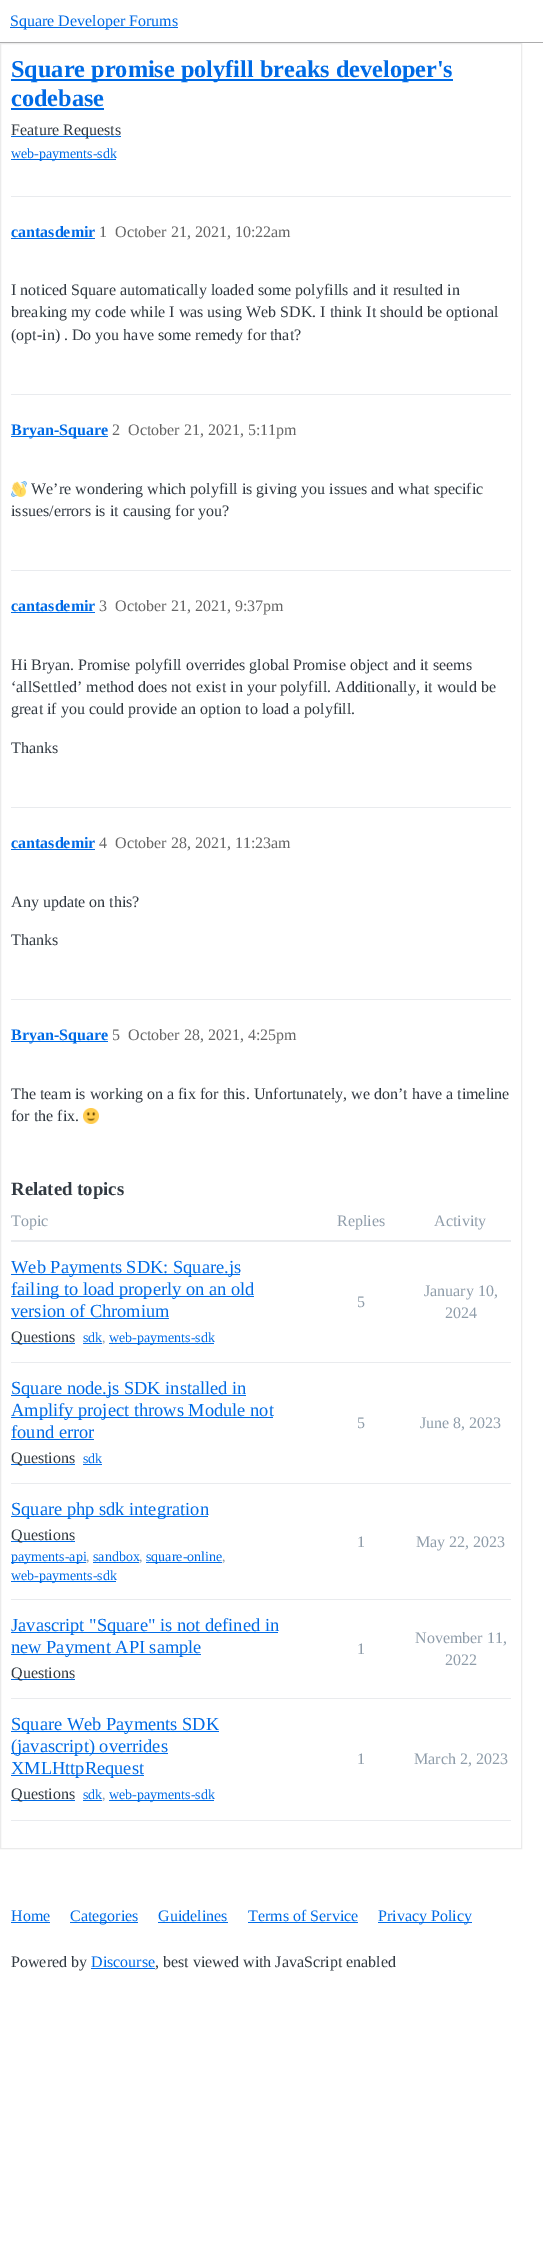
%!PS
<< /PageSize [543 2254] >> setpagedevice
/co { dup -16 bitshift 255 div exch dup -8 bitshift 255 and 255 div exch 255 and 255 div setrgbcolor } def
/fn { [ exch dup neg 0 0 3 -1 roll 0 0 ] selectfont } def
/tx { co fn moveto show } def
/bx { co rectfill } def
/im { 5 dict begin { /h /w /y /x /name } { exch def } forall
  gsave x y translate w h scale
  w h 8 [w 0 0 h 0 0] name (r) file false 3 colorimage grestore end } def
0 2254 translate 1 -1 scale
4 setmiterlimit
0 0 543 2254 16#FFFFFF bx
0 42 543 1 16#ACACAD bx
10 27 168 1 16#006BE6 bx
16#EBEBEB co
.5 43.5 521 1805 rectstroke
11 79 442 2 16#006BE6 bx
11 108 93 2 16#006BE6 bx
11 136 110 1 16#006BE6 bx
11 159 105 1 16#006BE6 bx
11 196 500 1 16#E9EBEE bx
11 238 84 1 16#006BE6 bx
11 394 500 1 16#E9EBEE bx
11 436 97 1 16#006BE6 bx
(media/1.raw) 11 481 16 16 im
11 570 500 1 16#E9EBEE bx
11 612 84 1 16#006BE6 bx
11 807 500 1 16#E9EBEE bx
11 849 84 1 16#006BE6 bx
11 999 500 1 16#E9EBEE bx
11 1041 97 1 16#006BE6 bx
(media/2.raw) 83 1108 16 16 im
11 1240 500 2 16#E9EBEE bx
11 1362 500 1 16#E9EBEE bx
11 1274 229 1 16#006BE6 bx
11 1296 243 1 16#006BE6 bx
11 1318 158 1 16#006BE6 bx
11 1343 64 1 16#006BE6 bx
83 1343 19 1 16#006BE6 bx
109 1343 105 1 16#006BE6 bx
11 1483 500 1 16#E9EBEE bx
11 1395 235 1 16#006BE6 bx
11 1417 262 1 16#006BE6 bx
11 1439 83 1 16#006BE6 bx
11 1464 64 1 16#006BE6 bx
83 1464 19 1 16#006BE6 bx
11 1599 500 1 16#E9EBEE bx
11 1516 197 1 16#006BE6 bx
11 1541 64 1 16#006BE6 bx
11 1562 75 1 16#006BE6 bx
93 1562 46 1 16#006BE6 bx
146 1562 76 1 16#006BE6 bx
11 1581 105 1 16#006BE6 bx
11 1698 500 1 16#E9EBEE bx
11 1632 267 1 16#006BE6 bx
11 1654 190 1 16#006BE6 bx
11 1679 64 1 16#006BE6 bx
11 1820 500 1 16#E9EBEE bx
11 1731 208 1 16#006BE6 bx
11 1753 157 1 16#006BE6 bx
11 1775 133 1 16#006BE6 bx
11 1800 64 1 16#006BE6 bx
83 1800 19 1 16#006BE6 bx
109 1800 105 1 16#006BE6 bx
11 1922 39 1 16#006BE6 bx
70 1922 68 1 16#006BE6 bx
158 1922 70 1 16#006BE6 bx
248 1922 110 1 16#006BE6 bx
378 1922 94 1 16#006BE6 bx
91 1968 64 1 16#006BE6 bx
(Square Developer Forums) 10 26 /LiberationSerif-Regular 16 16#006BE6 tx
(Square promise polyfill breaks developer's) 11 77 /LiberationSerif-Bold 24.25 16#006BE6 tx
(codebase) 11 106 /LiberationSerif-Bold 24.25 16#006BE6 tx
(Feature Requests) 11 135 /LiberationSerif-Regular 16 16#323A42 tx
(web-payments-sdk) 11 158 /LiberationSerif-Regular 14 16#006BE6 tx
(cantasdemir) 11 237 /LiberationSerif-Bold 16 16#006BE6 tx
(1) 99 237 /LiberationSerif-Regular 16 16#666666 tx
(October 21, 2021, 10:22am) 115 237 /LiberationSerif-Regular 16 16#666666 tx
(I noticed Square automatically loaded some polyfills and it resulted in) 11 295 /LiberationSerif-Regular 16 16#323A42 tx
(breaking my code while I was using Web SDK. I think It should be optional) 11 317 /LiberationSerif-Regular 16 16#323A42 tx
(\(opt-in\) . Do you have some remedy for that?) 11 340 /LiberationSerif-Regular 16 16#323A42 tx
(Bryan-Square) 11 435 /LiberationSerif-Bold 16 16#006BE6 tx
(2) 112 435 /LiberationSerif-Regular 16 16#666666 tx
(October 21, 2021, 5:11pm) 128 435 /LiberationSerif-Regular 16 16#666666 tx
(We’re wondering which polyfill is giving you issues and what specific) 31 494 /LiberationSerif-Regular 16 16#323A42 tx
(issues/errors is it causing for you?) 11 516 /LiberationSerif-Regular 16 16#323A42 tx
(cantasdemir) 11 611 /LiberationSerif-Bold 16 16#006BE6 tx
(3) 99 611 /LiberationSerif-Regular 16 16#666666 tx
(October 21, 2021, 9:37pm) 115 611 /LiberationSerif-Regular 16 16#666666 tx
(Hi Bryan. Promise polyfill overrides global Promise object and it seems) 11 670 /LiberationSerif-Regular 16 16#323A42 tx
(‘allSettled’ method does not exist in your polyfill. Additionally, it would be) 11 692 /LiberationSerif-Regular 16 16#323A42 tx
(great if you could provide an option to load a polyfill.) 11 714 /LiberationSerif-Regular 16 16#323A42 tx
(Thanks) 11 753 /LiberationSerif-Regular 16 16#323A42 tx
(cantasdemir) 11 848 /LiberationSerif-Bold 16 16#006BE6 tx
(4) 99 848 /LiberationSerif-Regular 16 16#666666 tx
(October 28, 2021, 11:23am) 115 848 /LiberationSerif-Regular 16 16#666666 tx
(Any update on this?) 11 907 /LiberationSerif-Regular 16 16#323A42 tx
(Thanks) 11 945 /LiberationSerif-Regular 16 16#323A42 tx
(Bryan-Square) 11 1040 /LiberationSerif-Bold 16 16#006BE6 tx
(5) 112 1040 /LiberationSerif-Regular 16 16#666666 tx
(October 28, 2021, 4:25pm) 128 1040 /LiberationSerif-Regular 16 16#666666 tx
(The team is working on a fix for this. Unfortunately, we don’t have a timeline) 11 1099 /LiberationSerif-Regular 16 16#323A42 tx
(for the fix.) 11 1121 /LiberationSerif-Regular 16 16#323A42 tx
(Related topics) 11 1195 /LiberationSerif-Bold 18.75 16#323A42 tx
(Topic) 11 1226 /LiberationSerif-Regular 16 16#8F9DAA tx
(Replies) 337 1226 /LiberationSerif-Regular 16 16#8F9DAA tx
(Activity) 434 1226 /LiberationSerif-Regular 16 16#8F9DAA tx
(Web Payments SDK: Square.js) 11 1273 /LiberationSerif-Regular 18.4 16#006BE6 tx
(failing to load properly on an old) 11 1295 /LiberationSerif-Regular 18.4 16#006BE6 tx
(version of Chromium) 11 1317 /LiberationSerif-Regular 18.4 16#006BE6 tx
(Questions) 11 1342 /LiberationSerif-Regular 16 16#323A42 tx
(sdk) 83 1342 /LiberationSerif-Regular 14 16#006BE6 tx
(,) 102 1342 /LiberationSerif-Regular 14 16#8F9DAA tx
(web-payments-sdk) 109 1342 /LiberationSerif-Regular 14 16#006BE6 tx
(5) 357 1307 /LiberationSerif-Regular 16 16#8F9DAA tx
(January 10,) 424 1296 /LiberationSerif-Regular 16 16#8F9DAA tx
(2024) 445 1318 /LiberationSerif-Regular 16 16#8F9DAA tx
(Square node.js SDK installed in) 11 1394 /LiberationSerif-Regular 18.4 16#006BE6 tx
(Amplify project throws Module not) 11 1416 /LiberationSerif-Regular 18.4 16#006BE6 tx
(found error) 11 1438 /LiberationSerif-Regular 18.4 16#006BE6 tx
(Questions) 11 1463 /LiberationSerif-Regular 16 16#323A42 tx
(sdk) 83 1463 /LiberationSerif-Regular 14 16#006BE6 tx
(5) 357 1428 /LiberationSerif-Regular 16 16#8F9DAA tx
(June 8, 2023) 420 1428 /LiberationSerif-Regular 16 16#8F9DAA tx
(Square php sdk integration) 11 1515 /LiberationSerif-Regular 18.4 16#006BE6 tx
(Questions) 11 1540 /LiberationSerif-Regular 16 16#323A42 tx
(payments-api) 11 1561 /LiberationSerif-Regular 14 16#006BE6 tx
(,) 86 1561 /LiberationSerif-Regular 14 16#8F9DAA tx
(sandbox) 93 1561 /LiberationSerif-Regular 14 16#006BE6 tx
(,) 139 1561 /LiberationSerif-Regular 14 16#8F9DAA tx
(square-online) 146 1561 /LiberationSerif-Regular 14 16#006BE6 tx
(,) 222 1561 /LiberationSerif-Regular 14 16#8F9DAA tx
(web-payments-sdk) 11 1580 /LiberationSerif-Regular 14 16#006BE6 tx
(1) 357 1547 /LiberationSerif-Regular 16 16#8F9DAA tx
(May 22, 2023) 416 1547 /LiberationSerif-Regular 16 16#8F9DAA tx
(Javascript "Square" is not defined in) 11 1631 /LiberationSerif-Regular 18.4 16#006BE6 tx
(new Payment API sample) 11 1653 /LiberationSerif-Regular 18.4 16#006BE6 tx
(Questions) 11 1678 /LiberationSerif-Regular 16 16#323A42 tx
(1) 357 1654 /LiberationSerif-Regular 16 16#8F9DAA tx
(November 11,) 415 1643 /LiberationSerif-Regular 16 16#8F9DAA tx
(2022) 445 1665 /LiberationSerif-Regular 16 16#8F9DAA tx
(Square Web Payments SDK) 11 1730 /LiberationSerif-Regular 18.4 16#006BE6 tx
(\(javascript\) overrides) 11 1752 /LiberationSerif-Regular 18.4 16#006BE6 tx
(XMLHttpRequest) 11 1774 /LiberationSerif-Regular 18.4 16#006BE6 tx
(Questions) 11 1799 /LiberationSerif-Regular 16 16#323A42 tx
(sdk) 83 1799 /LiberationSerif-Regular 14 16#006BE6 tx
(,) 102 1799 /LiberationSerif-Regular 14 16#8F9DAA tx
(web-payments-sdk) 109 1799 /LiberationSerif-Regular 14 16#006BE6 tx
(1) 357 1764 /LiberationSerif-Regular 16 16#8F9DAA tx
(March 2, 2023) 414 1764 /LiberationSerif-Regular 16 16#8F9DAA tx
(Home) 11 1921 /LiberationSerif-Regular 16 16#006BE6 tx
(Categories) 70 1921 /LiberationSerif-Regular 16 16#006BE6 tx
(Guidelines) 158 1921 /LiberationSerif-Regular 16 16#006BE6 tx
(Terms of Service) 248 1921 /LiberationSerif-Regular 16 16#006BE6 tx
(Privacy Policy) 378 1921 /LiberationSerif-Regular 16 16#006BE6 tx
(Powered by) 11 1967 /LiberationSerif-Regular 16 16#323A42 tx
(Discourse) 91 1967 /LiberationSerif-Regular 16 16#006BE6 tx
(, best viewed with JavaScript enabled) 155 1967 /LiberationSerif-Regular 16 16#323A42 tx
showpage
